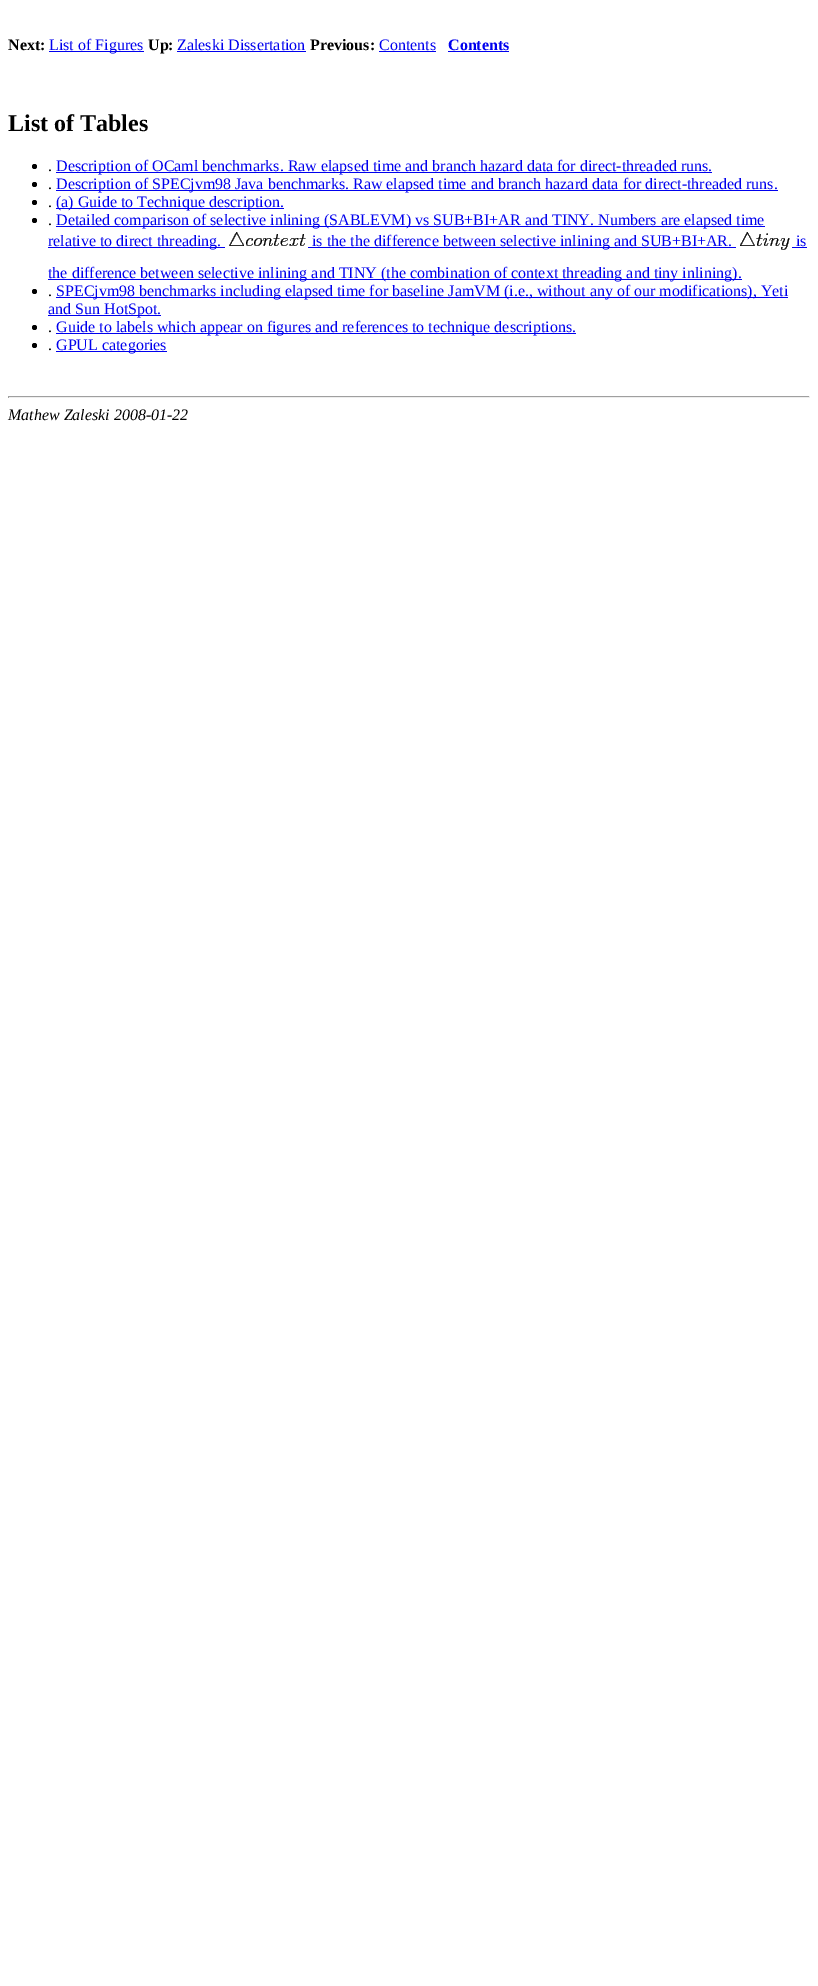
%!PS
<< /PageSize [818 1986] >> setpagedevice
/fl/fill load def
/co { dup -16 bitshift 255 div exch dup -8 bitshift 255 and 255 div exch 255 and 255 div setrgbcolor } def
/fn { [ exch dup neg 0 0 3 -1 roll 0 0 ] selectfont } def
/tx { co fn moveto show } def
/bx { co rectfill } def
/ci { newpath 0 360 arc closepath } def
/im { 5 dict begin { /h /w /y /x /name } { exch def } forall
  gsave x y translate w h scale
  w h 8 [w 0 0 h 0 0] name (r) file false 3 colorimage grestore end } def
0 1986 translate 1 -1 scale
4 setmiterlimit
0 0 818 1986 16#FFFFFF bx
49 51 95 1 16#0000EE bx
177 51 129 1 16#0000EE bx
379 51 57 1 16#0000EE bx
448 51 61 1 16#0000EE bx
16#000000 co
34.5 166.5 2.5 ci fl
56 172 656 1 16#0000EE bx
16#000000 co
34.5 184.5 2.5 ci fl
56 190 722 1 16#0000EE bx
16#000000 co
34.5 202.5 2.5 ci fl
56 208 228 1 16#0000EE bx
16#000000 co
34.5 220.5 2.5 ci fl
56 226 709 1 16#0000EE bx
48 247 177 1 16#0000EE bx
(media/1.raw) 229 232 77 14 im
308 247 428 1 16#0000EE bx
(media/2.raw) 740 232 50 18 im
792 247 15 1 16#0000EE bx
48 279 694 1 16#0000EE bx
16#000000 co
34.5 291.5 2.5 ci fl
56 297 732 1 16#0000EE bx
48 315 113 1 16#0000EE bx
16#000000 co
34.5 327.5 2.5 ci fl
56 333 520 1 16#0000EE bx
16#000000 co
34.5 345.5 2.5 ci fl
56 351 111 1 16#0000EE bx
8 396 802 1 16#9F9F9F bx
809 396 1 2 16#EEEEEE bx
8 397 802 1 16#EEEEEE bx
8 396 1 2 16#9F9F9F bx
(Next:) 8 50 /LiberationSerif-Bold 16 16#000000 tx
(List of Figures) 49 50 /LiberationSerif-Regular 16 16#0000EE tx
(Up:) 148 50 /LiberationSerif-Bold 16 16#000000 tx
(Zaleski Dissertation) 177 50 /LiberationSerif-Regular 16 16#0000EE tx
(Previous:) 310 50 /LiberationSerif-Bold 16 16#000000 tx
(Contents) 379 50 /LiberationSerif-Regular 16 16#0000EE tx
(Contents) 448 50 /LiberationSerif-Bold 16 16#0000EE tx
(List of Tables) 8 131 /LiberationSerif-Bold 24 16#000000 tx
(Description of OCaml benchmarks. Raw elapsed time and branch hazard data for direct-threaded runs.) 56 171 /LiberationSerif-Regular 16 16#0000EE tx
(.) 48 171 /LiberationSerif-Regular 16 16#000000 tx
(Description of SPECjvm98 Java benchmarks. Raw elapsed time and branch hazard data for direct-threaded runs.) 56 189 /LiberationSerif-Regular 16 16#0000EE tx
(.) 48 189 /LiberationSerif-Regular 16 16#000000 tx
(\(a\) Guide to Technique description.) 56 207 /LiberationSerif-Regular 16 16#0000EE tx
(.) 48 207 /LiberationSerif-Regular 16 16#000000 tx
(Detailed comparison of selective inlining \(SABLEVM\) vs SUB+BI+AR and TINY. Numbers are elapsed time) 56 225 /LiberationSerif-Regular 16 16#0000EE tx
(.) 48 225 /LiberationSerif-Regular 16 16#000000 tx
(relative to direct threading.) 48 246 /LiberationSerif-Regular 16 16#0000EE tx
(is the the difference between selective inlining and SUB+BI+AR.) 312 246 /LiberationSerif-Regular 16 16#0000EE tx
(is) 796 246 /LiberationSerif-Regular 16 16#0000EE tx
(the difference between selective inlining and TINY \(the combination of context threading and tiny inlining\).) 48 278 /LiberationSerif-Regular 16 16#0000EE tx
(SPECjvm98 benchmarks including elapsed time for baseline JamVM \(i.e., without any of our modifications\), Yeti) 56 296 /LiberationSerif-Regular 16 16#0000EE tx
(.) 48 296 /LiberationSerif-Regular 16 16#000000 tx
(and Sun HotSpot.) 48 314 /LiberationSerif-Regular 16 16#0000EE tx
(Guide to labels which appear on figures and references to technique descriptions.) 56 332 /LiberationSerif-Regular 16 16#0000EE tx
(.) 48 332 /LiberationSerif-Regular 16 16#000000 tx
(GPUL categories) 56 350 /LiberationSerif-Regular 16 16#0000EE tx
(.) 48 350 /LiberationSerif-Regular 16 16#000000 tx
(Mathew Zaleski 2008-01-22) 8 420 /LiberationSerif-Italic 16 16#000000 tx
showpage
